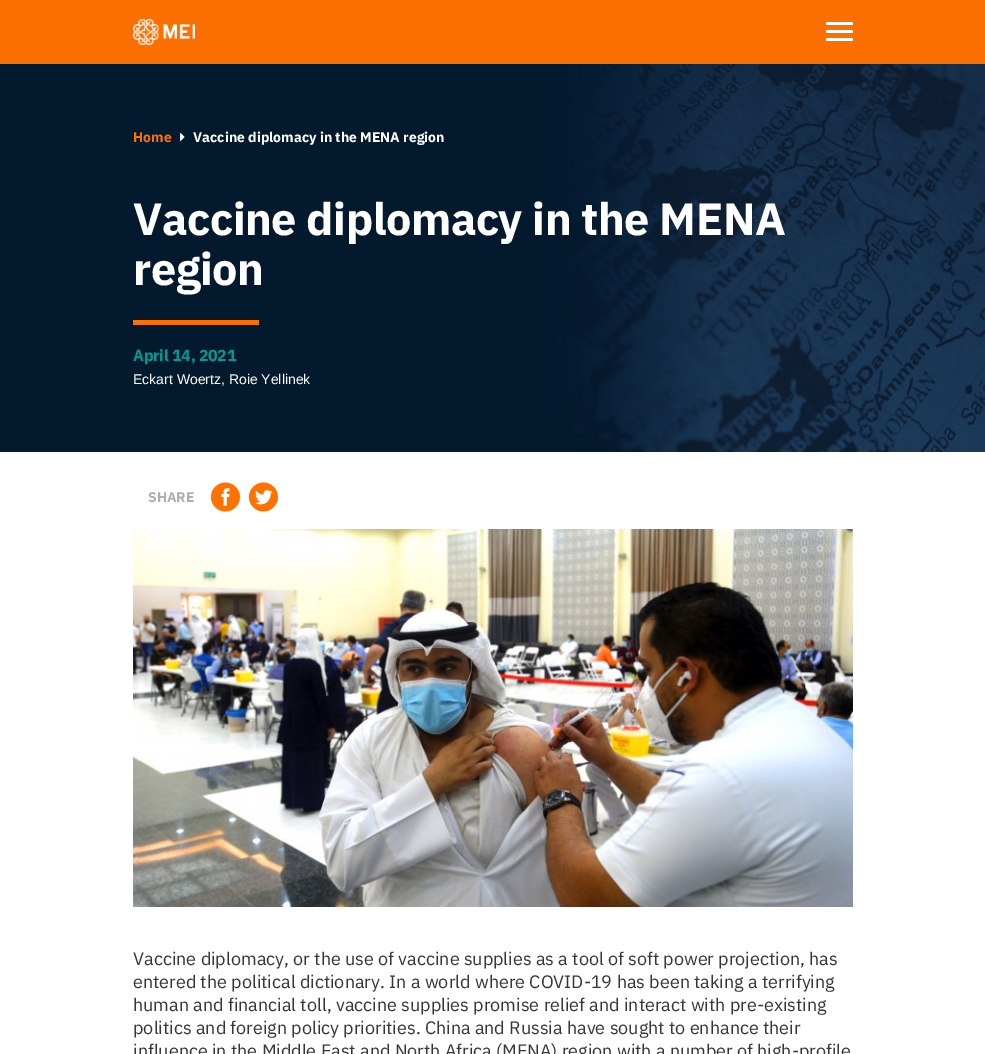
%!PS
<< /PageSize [985 1054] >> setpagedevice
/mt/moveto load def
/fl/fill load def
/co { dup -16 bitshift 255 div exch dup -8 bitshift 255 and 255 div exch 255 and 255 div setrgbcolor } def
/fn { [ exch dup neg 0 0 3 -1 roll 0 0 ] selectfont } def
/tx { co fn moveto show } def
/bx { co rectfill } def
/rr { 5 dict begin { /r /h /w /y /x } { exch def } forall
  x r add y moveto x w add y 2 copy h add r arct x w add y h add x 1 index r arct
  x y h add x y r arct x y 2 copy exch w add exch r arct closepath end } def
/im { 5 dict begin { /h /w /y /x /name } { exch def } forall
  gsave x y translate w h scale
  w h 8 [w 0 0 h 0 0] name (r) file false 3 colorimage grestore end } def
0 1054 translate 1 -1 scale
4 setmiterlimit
0 0 985 1054 16#FFFFFF bx
0 0 985 64 16#FC6F01 bx
(media/1.raw) 133 19 62 26 im
16#FFFFFF co
826 30 27 3 1.5 rr fl
826 22 27 3 1.5 rr fl
826 38 27 3 1.5 rr fl
(media/2.raw) 0 64 985 388 im
(media/3.raw) 180 133 5 8 im
133 320 126 5 16#FC6F01 bx
(media/4.raw) 210 482 30 30 im
(media/5.raw) 248 482 30 30 im
(media/6.raw) 133 529 720 378 im
(Home) 133 142 /IBMPlexSans-Bold 14 16#FC6F01 tx
(Vaccine diplomacy in the MENA region) 193 142 /IBMPlexSans-Bold 14 16#FFFFFF tx
/IBMPlexSans-Bold 45 fn
133 235 mt -.45 0 (Vaccine diplomacy in the MENA) ashow
133 285 mt -.45 0 (region) ashow
/IBMPlexSans-Bold 16 fn
16#049892 co
133 361 mt -.25 0 (April 14, 2021) ashow
(Eckart Woertz, Roie Yellinek) 133 384 /LiberationSans-Regular 14 16#FFFFFF tx
(SHARE) 148 502 /IBMPlexSans-Bold 14 16#AFAFAF tx
(Vaccine diplomacy, or the use of vaccine supplies as a tool of soft power projection, has) 133 965 /IBMPlexSans-Regular 18 16#363636 tx
(entered the political dictionary. In a world where COVID-19 has been taking a terrifying) 133 988 /IBMPlexSans-Regular 18 16#363636 tx
(human and financial toll, vaccine supplies promise relief and interact with pre-existing) 133 1011 /IBMPlexSans-Regular 18 16#363636 tx
(politics and foreign policy priorities. China and Russia have sought to enhance their) 133 1034 /IBMPlexSans-Regular 18 16#363636 tx
(influence in the Middle East and North Africa \(MENA\) region with a number of high-profile) 133 1057 /IBMPlexSans-Regular 18 16#363636 tx
showpage
